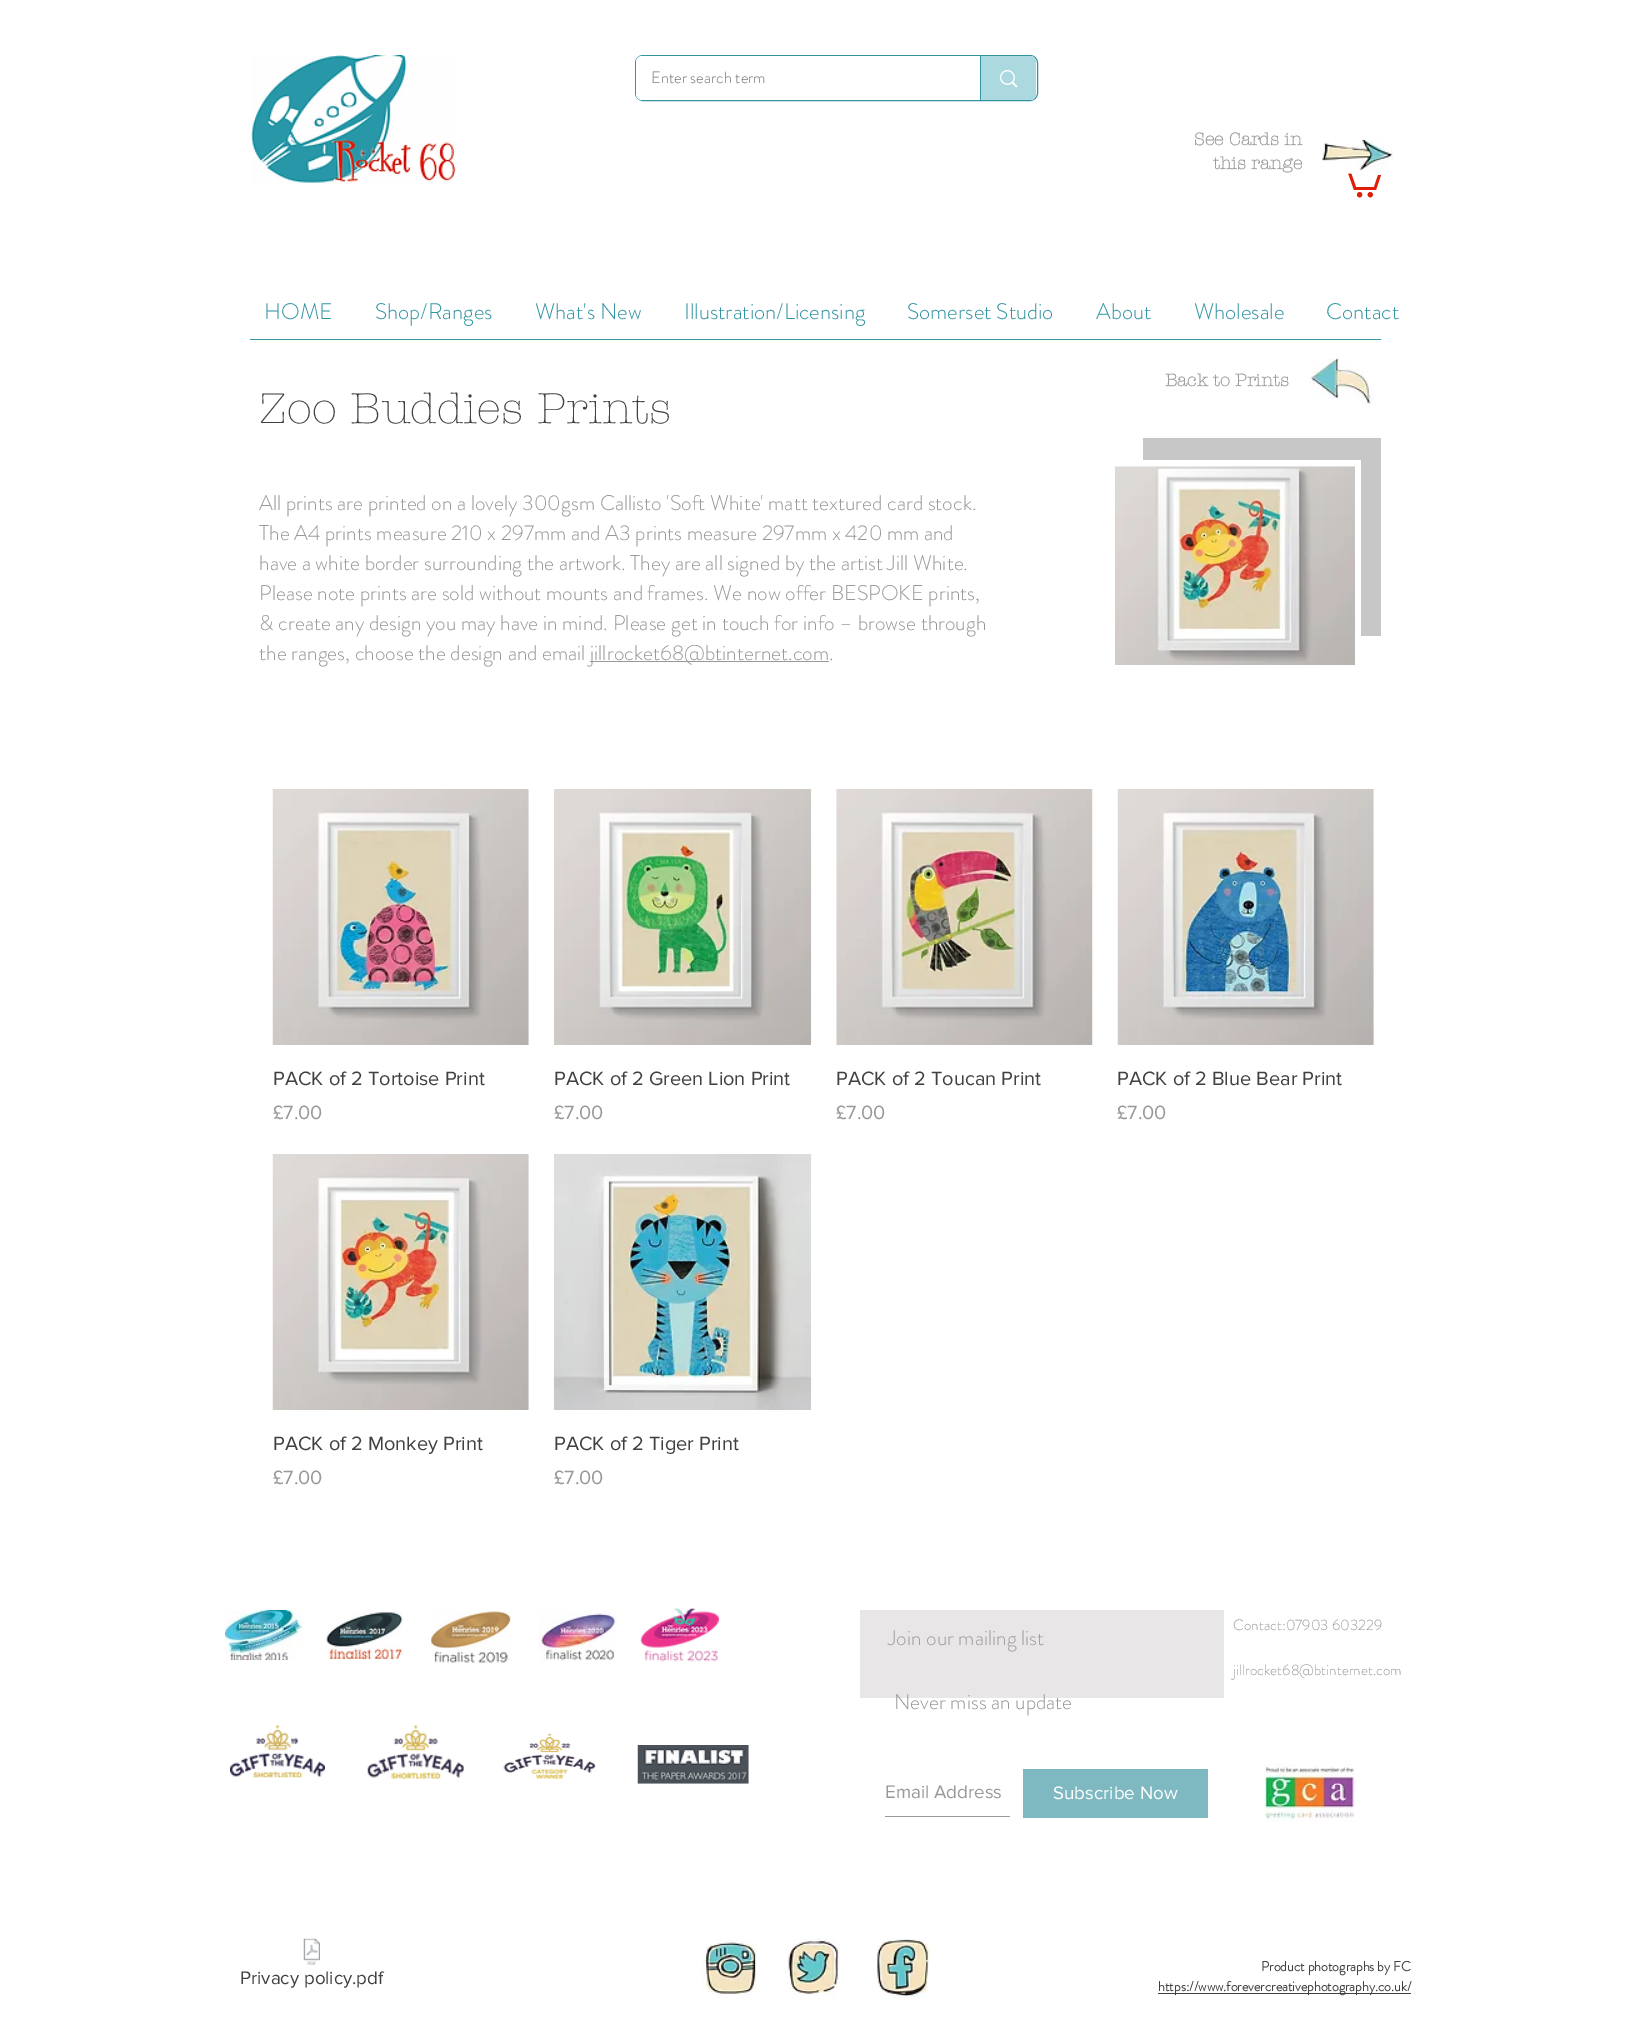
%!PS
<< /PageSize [1632 2035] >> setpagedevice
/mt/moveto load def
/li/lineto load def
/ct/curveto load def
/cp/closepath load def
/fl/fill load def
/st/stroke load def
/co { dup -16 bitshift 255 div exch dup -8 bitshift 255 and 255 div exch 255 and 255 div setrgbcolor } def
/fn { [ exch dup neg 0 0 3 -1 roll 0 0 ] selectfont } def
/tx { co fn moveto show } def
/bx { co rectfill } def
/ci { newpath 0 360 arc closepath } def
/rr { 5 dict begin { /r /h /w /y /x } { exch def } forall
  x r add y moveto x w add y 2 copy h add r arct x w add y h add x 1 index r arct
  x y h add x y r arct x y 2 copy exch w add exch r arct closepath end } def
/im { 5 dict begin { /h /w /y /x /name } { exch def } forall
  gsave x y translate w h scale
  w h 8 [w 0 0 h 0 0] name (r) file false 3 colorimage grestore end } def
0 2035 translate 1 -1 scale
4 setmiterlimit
0 0 1632 2035 16#FFFFFF bx
(media/1.raw) 251 55 205 129 im
16#3194A3 co
635.5 55.5 402 45 7.5 rr st
16#FFFFFF co
636 56 400 44 6 rr fl
16#ACD9E0 co
980 56 mt 1030 56 li 1033.5 56 1036 58.5 1036 62 ct 1036 94 li 1036 97.5 1033.5 100 1030 100 ct 980 100 li cp fl
980 56 1 44 16#3194A3 bx
(media/2.raw) 1000 70 18 18 im
16#DF1E07 co
1381 175 mt 1376 190 li 1354 190 li 1347 170 li 1341 170 li 1341 167 li 1349 167 li 1356 187 li 1374 187 li 1378 175 li fl
1370.3 194.7 2.6 ci fl
1359.6 194.7 2.6 ci fl
250 339 1131 1 16#3194A3 bx
(media/3.raw) 1322 139 72 35 im
(media/4.raw) 1309 354 65 50 im
1143 438 238 198 16#C7C7C7 bx
590 661 239 1 16#999997 bx
1143 460 218 176 16#FFFFFF bx
(media/5.raw) 1115 466 240 199 im
(media/6.raw) 272 789 257 256 im
(media/7.raw) 554 789 258 256 im
(media/8.raw) 836 789 257 256 im
(media/9.raw) 1117 789 257 256 im
(media/10.raw) 272 1154 257 256 im
(media/11.raw) 553 1154 259 256 im
(media/12.raw) 225 1610 78 50 im
(media/13.raw) 326 1612 77 48 im
(media/14.raw) 431 1611 80 52 im
(media/15.raw) 539 1610 78 51 im
(media/16.raw) 640 1607 80 55 im
860 1610 364 88 16#E8E6E6 bx
885 1816 125 1 16#999997 bx
1023 1769 185 49 16#7EB9C2 bx
(media/17.raw) 230 1725 95 53 im
(media/18.raw) 367 1725 97 54 im
(media/19.raw) 503 1733 93 46 im
(media/20.raw) 637 1745 112 39 im
(media/21.raw) 1263 1764 92 58 im
(media/22.raw) 303 1938 17 27 im
(media/23.raw) 701 1940 56 55 im
(media/24.raw) 785 1938 55 61 im
(media/25.raw) 877 1939 54 60 im
1158 1993 253 1 16#414141 bx
(Enter search term) 651 83 /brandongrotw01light-Light 16.25 16#787878 tx
(HOME) 264 319 /brandongrotw01light-Light 22.5 16#3194A3 tx
(Shop/Ranges) 375 319 /brandongrotw01light-Light 22.5 16#3194A3 tx
(What's New) 535 319 /brandongrotw01light-Light 22.5 16#3194A3 tx
(Illustration/Licensing) 684 319 /brandongrotw01light-Light 22.5 16#3194A3 tx
(Somerset Studio) 907 319 /brandongrotw01light-Light 22.5 16#3194A3 tx
(About) 1096 319 /brandongrotw01light-Light 22.5 16#3194A3 tx
(Wholesale) 1194 319 /brandongrotw01light-Light 22.5 16#3194A3 tx
(Contact) 1326 319 /brandongrotw01light-Light 22.5 16#3194A3 tx
(See Cards in) 1194 145 /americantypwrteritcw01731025-Bold 17.5 16#999997 tx
(this range) 1213 169 /americantypwrteritcw01731025-Bold 17.5 16#999997 tx
(Back to Prints) 1165 386 /americantypwrteritcw01731025-Bold 17.5 16#999997 tx
(Zoo Buddies Prints) 259 423 /americantypwrteritcw01731025-Light 43.75 16#414141 tx
(All prints are printed on a lovely 300gsm Callisto 'Soft White' matt textured card stock.) 259 510 /brandongrotw01light-Light 21.25 16#999997 tx
(The A4 prints measure 210 x 297mm and A3 prints measure 297mm x 420 mm and) 259 540 /brandongrotw01light-Light 21.25 16#999997 tx
(have a white border surrounding the artwork. They are all signed by the artist Jill White.) 259 570 /brandongrotw01light-Light 21.25 16#999997 tx
(Please note prints are sold without mounts and frames. We now offer BESPOKE prints,) 259 600 /brandongrotw01light-Light 21.25 16#999997 tx
(& create any design you may have in mind. Please get in touch for info – browse through) 259 630 /brandongrotw01light-Light 21.25 16#999997 tx
(the ranges, choose the design and email) 259 660 /brandongrotw01light-Light 21.25 16#999997 tx
(jillrocket68@btinternet.com.) 590 660 /brandongrotw01light-Light 21.25 16#999997 tx
(PACK of 2 Tortoise Print) 273 1085 /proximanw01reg-Regular 20 16#414141 tx
(£7.00) 273 1119 /proximanw01reg-Regular 20 16#999997 tx
(PACK of 2 Green Lion Print) 554 1085 /proximanw01reg-Regular 20 16#414141 tx
(£7.00) 554 1119 /proximanw01reg-Regular 20 16#999997 tx
(PACK of 2 Toucan Print) 836 1085 /proximanw01reg-Regular 20 16#414141 tx
(£7.00) 836 1119 /proximanw01reg-Regular 20 16#999997 tx
(PACK of 2 Blue Bear Print) 1117 1085 /proximanw01reg-Regular 20 16#414141 tx
(£7.00) 1117 1119 /proximanw01reg-Regular 20 16#999997 tx
(PACK of 2 Monkey Print) 273 1450 /proximanw01reg-Regular 20 16#414141 tx
(£7.00) 273 1484 /proximanw01reg-Regular 20 16#999997 tx
(PACK of 2 Tiger Print) 554 1450 /proximanw01reg-Regular 20 16#414141 tx
(£7.00) 554 1484 /proximanw01reg-Regular 20 16#999997 tx
(Join our mailing list) 888 1645 /brandongrotw01light-Light 21.25 16#A0A09F tx
(Never miss an update) 894 1709 /brandongrotw01light-Light 21.25 16#999997 tx
(Email Address) 885 1798 /proximanw01reg-Regular 18.75 16#999997 tx
(Subscribe Now) 1053 1799 /proximanw01reg-Regular 18.75 16#FFFFFF tx
(Contact:07903 603229) 1233 1630 /brandongrotw01light-Light 15 16#999997 tx
(jillrocket68@btinternet.com) 1233 1675 /brandongrotw01light-Light 15 16#999997 tx
(Privacy policy.pdf) 240 1984 /proximanw01reg-Regular 18.75 16#414141 tx
(Product photographs by FC) 1261 1971 /brandongrotw01light-Bold 13.75 16#414141 tx
(https://www.forevercreativephotography.co.uk/) 1158 1991 /brandongrotw01light-Bold 13.75 16#414141 tx
showpage
